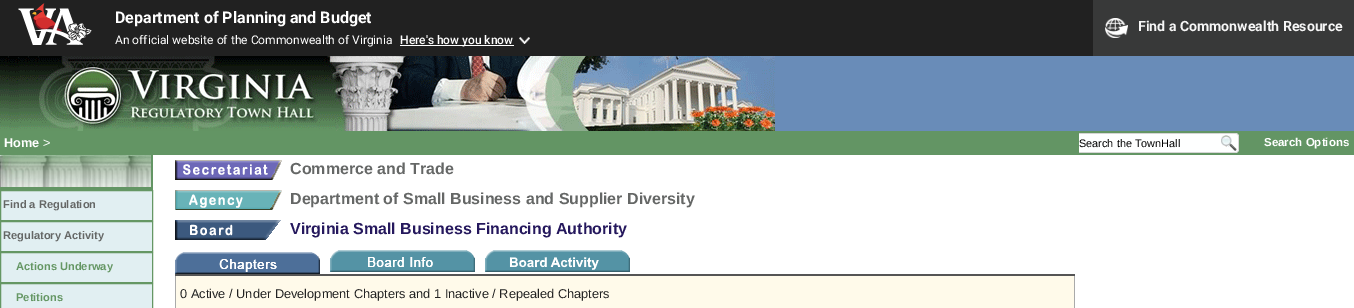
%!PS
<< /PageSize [1354 308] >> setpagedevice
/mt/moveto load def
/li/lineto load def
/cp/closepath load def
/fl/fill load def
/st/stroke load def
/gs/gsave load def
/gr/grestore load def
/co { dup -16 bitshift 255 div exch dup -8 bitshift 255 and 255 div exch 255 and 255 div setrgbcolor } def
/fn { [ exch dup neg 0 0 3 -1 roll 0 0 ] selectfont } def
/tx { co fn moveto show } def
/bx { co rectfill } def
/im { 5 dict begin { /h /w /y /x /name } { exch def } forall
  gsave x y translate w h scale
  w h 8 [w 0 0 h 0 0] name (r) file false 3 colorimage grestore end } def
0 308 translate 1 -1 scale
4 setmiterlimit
0 0 1354 308 16#FFFFFF bx
0 0 1093 56 16#212121 bx
(media/1.raw) 18 3 74 42 im
400 45 114 1 16#FFFFFF bx
(media/2.raw) 519 37 11 7 im
1093 0 261 56 16#383939 bx
(media/3.raw) 1105 18 23 20 im
775 56 579 75 16#698CB8 bx
(media/4.raw) 0 56 775 75 im
0 131 1354 24 16#639564 bx
1079 134 140 18 16#FEFFFF bx
1079 133 140 1 16#D5D5D5 bx
1079 152 140 1 16#D5D5D5 bx
(media/5.raw) 1219 133 20 20 im
0 155 153 35 16#639564 bx
(media/6.raw) 0 155 151 32 im
16#E1EFF2 co
.5 190.5 mt 152.5 190.5 li 152.5 220.5 li .5 220.5 li cp gs fl gr
16#659764 co
st
16#E1EFF2 co
.5 221.5 mt 152.5 221.5 li 152.5 251.5 li .5 251.5 li cp gs fl gr
16#659764 co
st
16#E1EFF2 co
.5 252.5 mt 152.5 252.5 li 152.5 282.5 li .5 282.5 li cp gs fl gr
16#659764 co
st
16#E1EFF2 co
.5 283.5 mt 152.5 283.5 li 152.5 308.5 li .5 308.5 li cp gs fl gr
16#659764 co
st
(media/7.raw) 175 160 107 20 im
(media/8.raw) 175 190 107 20 im
(media/9.raw) 175 220 106 20 im
(media/10.raw) 175 252 145 22 im
(media/11.raw) 330 250 145 22 im
(media/12.raw) 485 250 145 22 im
176 276 898 32 16#FFFAEA bx
1074 275 1 33 16#AAAAAA bx
175 275 1 33 16#AAAAAA bx
175 274 900 2 16#555555 bx
(Department of Planning and Budget) 115 23 /Roboto-Bold 16 16#FFFFFF tx
(An official website of the Commonwealth of Virginia) 115 44 /Roboto-Regular 12 16#FFFFFF tx
(Here's how you know) 400 44 /Roboto-Medium 12 16#FFFFFF tx
(Find a Commonwealth Resource) 1138 31 /Roboto-Bold 14.1 16#F6F6F6 tx
(Home) 4 147 /LiberationSans-Bold 12.8 16#FFFFFF tx
(>) 43 147 /LiberationSans-Regular 12.8 16#FFFFFF tx
(Search the TownHall) 1079 147 /LiberationSans-Regular 10.9 16#000000 tx
(Search Options) 1264 146 /LiberationSans-Bold 11.5 16#FFFFFF tx
(Find a Regulation) 3 208 /LiberationSans-Bold 11.1 16#656766 tx
(Regulatory Activity) 3 239 /LiberationSans-Bold 11.1 16#656766 tx
(Actions Underway) 16 270 /LiberationSans-Bold 11.1 16#659764 tx
(Petitions) 16 301 /LiberationSans-Bold 11.1 16#659764 tx
(Commerce and Trade) 290 174 /LiberationSans-Bold 16 16#656766 tx
(Department of Small Business and Supplier Diversity) 290 204 /LiberationSans-Bold 16 16#656766 tx
(Virginia Small Business Financing Authority) 290 234 /LiberationSans-Bold 16 16#25185D tx
(0 Active / Under Development Chapters and 1 Inactive / Repealed Chapters) 180 298 /LiberationSans-Regular 12.8 16#222222 tx
showpage
